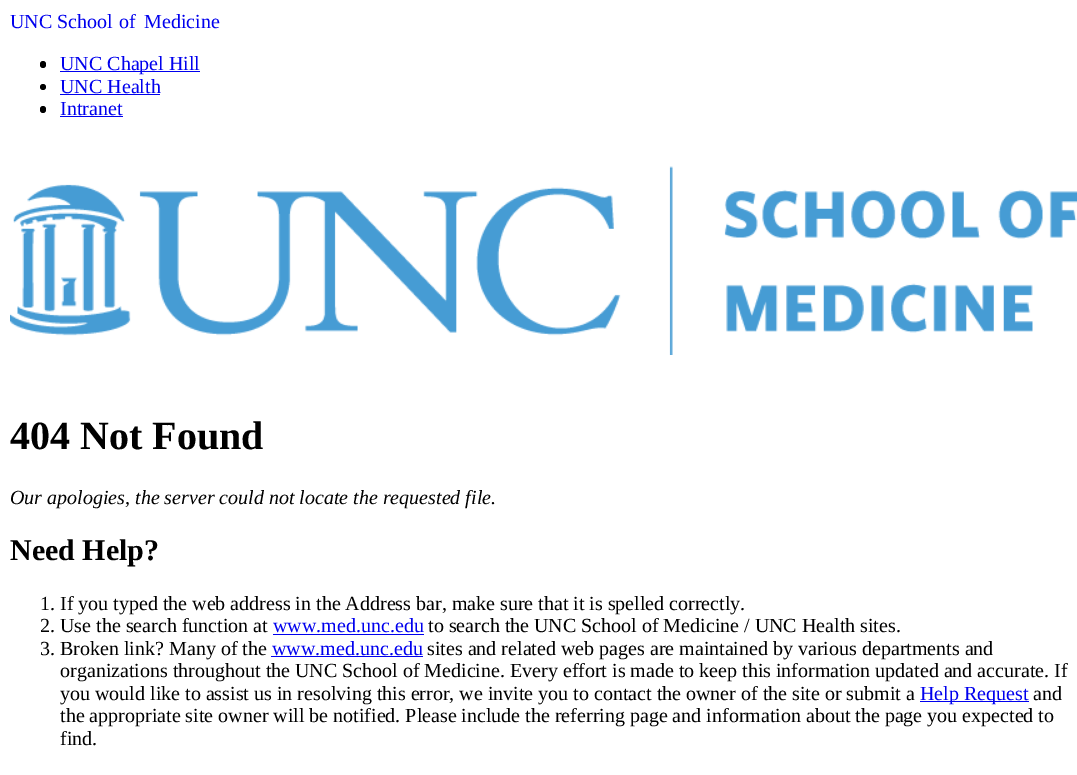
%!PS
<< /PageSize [1077 775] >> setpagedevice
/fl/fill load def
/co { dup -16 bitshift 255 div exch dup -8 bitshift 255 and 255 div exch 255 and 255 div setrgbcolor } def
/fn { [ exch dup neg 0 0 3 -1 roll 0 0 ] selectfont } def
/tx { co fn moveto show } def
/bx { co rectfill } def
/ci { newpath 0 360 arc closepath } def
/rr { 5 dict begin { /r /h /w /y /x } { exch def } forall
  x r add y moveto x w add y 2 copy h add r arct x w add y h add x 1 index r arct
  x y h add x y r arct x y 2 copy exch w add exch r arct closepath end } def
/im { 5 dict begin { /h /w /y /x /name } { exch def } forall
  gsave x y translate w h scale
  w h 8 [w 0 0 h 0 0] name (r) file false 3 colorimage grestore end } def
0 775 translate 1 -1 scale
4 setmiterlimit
0 0 1077 775 16#FFFFFF bx
16#000000 co
40 61 6 7 3 rr fl
60 71 140 1 16#0000EE bx
16#000000 co
43 87 3 ci fl
60 94 100 1 16#0000EE bx
16#000000 co
40 106 6 7 3 rr fl
60 116 63 1 16#0000EE bx
(media/1.raw) 10 166 1067 189 im
273 634 151 1 16#0000EE bx
271 656 152 1 16#0000EE bx
920 701 109 1 16#0000EE bx
(UNC School) 10 28 /LiberationSerif-Regular 20 16#0000EE tx
(of) 119 28 /LiberationSerif-Regular 20 16#0000EE tx
(Medicine) 144 28 /LiberationSerif-Regular 20 16#0000EE tx
(UNC Chapel Hill) 60 70 /LiberationSerif-Regular 20 16#0000EE tx
(UNC Health) 60 93 /LiberationSerif-Regular 20 16#0000EE tx
(Intranet) 60 115 /LiberationSerif-Regular 20 16#0000EE tx
(404 Not Found) 10 449 /LiberationSerif-Bold 40 16#000000 tx
(Our apologies, the server could not locate the requested file.) 10 504 /LiberationSerif-Italic 20 16#000000 tx
(Need Help?) 10 560 /LiberationSerif-Bold 30 16#000000 tx
(1. If you typed the web address in the Address bar, make sure that it is spelled correctly.) 40 610 /LiberationSerif-Regular 20 16#000000 tx
(2. Use the search function at) 40 632 /LiberationSerif-Regular 20 16#000000 tx
(www.med.unc.edu) 273 632 /LiberationSerif-Regular 20 16#0000EE tx
(to search the UNC School of Medicine / UNC Health sites.) 428 632 /LiberationSerif-Regular 20 16#000000 tx
(3. Broken link? Many of the) 40 655 /LiberationSerif-Regular 20 16#000000 tx
(www.med.unc.edu) 272 655 /LiberationSerif-Regular 20 16#0000EE tx
(sites and related web pages are maintained by various departments and) 427 655 /LiberationSerif-Regular 20 16#000000 tx
(organizations throughout the UNC School of Medicine. Every effort is made to keep this information updated and accurate. If) 60 677 /LiberationSerif-Regular 20 16#000000 tx
(you would like to assist us in resolving this error, we invite you to contact the owner of the site or submit a) 60 700 /LiberationSerif-Regular 20 16#000000 tx
(Help Request) 920 700 /LiberationSerif-Regular 20 16#0000EE tx
(and) 1033 700 /LiberationSerif-Regular 20 16#000000 tx
(the appropriate site owner will be notified. Please include the referring page and information about the page you expected to) 60 722 /LiberationSerif-Regular 20 16#000000 tx
(find.) 60 745 /LiberationSerif-Regular 20 16#000000 tx
showpage
